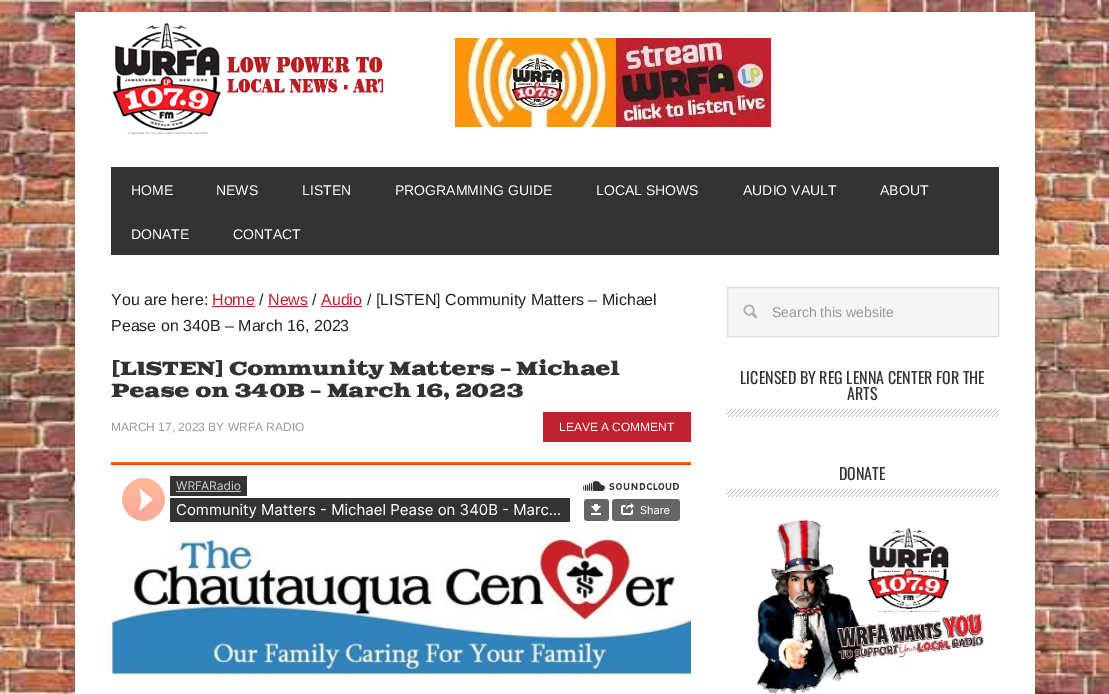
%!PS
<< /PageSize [1109 694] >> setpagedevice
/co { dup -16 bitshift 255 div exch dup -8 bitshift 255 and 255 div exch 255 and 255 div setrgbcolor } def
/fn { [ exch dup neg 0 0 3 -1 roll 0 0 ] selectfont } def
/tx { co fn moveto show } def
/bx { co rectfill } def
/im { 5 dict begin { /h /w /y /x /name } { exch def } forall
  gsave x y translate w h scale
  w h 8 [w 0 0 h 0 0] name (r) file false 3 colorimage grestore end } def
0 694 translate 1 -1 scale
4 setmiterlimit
0 0 1109 694 16#FFFFFF bx
(media/1.raw) 0 0 1109 694 im
75 12 960 682 16#FFFFFF bx
(media/2.raw) 112 22 271 113 im
(media/3.raw) 455 38 316 89 im
111 167 888 88 16#333333 bx
212 306 43 1 16#BE2230 bx
268 306 40 1 16#BE2230 bx
321 306 41 1 16#BE2230 bx
543 412 148 30 16#BE2230 bx
(media/4.raw) 111 462 580 214 im
728 288 270 48 16#F5F5F5 bx
(media/5.raw) 743 304 15 15 im
16#DDDDDD co
727.5 287.5 271 49 rectstroke
(media/6.raw) 727 409 272 8 im
(media/6.raw) 727 489 272 8 im
(media/7.raw) 757 519 228 175 im
(HOME) 131 195 /LiberationSans-Regular 14 16#FFFFFF tx
(NEWS) 216 195 /LiberationSans-Regular 14 16#FFFFFF tx
(LISTEN) 302 195 /LiberationSans-Regular 14 16#FFFFFF tx
(PROGRAMMING GUIDE) 395 195 /LiberationSans-Regular 14 16#FFFFFF tx
(LOCAL SHOWS) 596 195 /LiberationSans-Regular 14 16#FFFFFF tx
(AUDIO VAULT) 743 195 /LiberationSans-Regular 14 16#FFFFFF tx
(ABOUT) 880 195 /LiberationSans-Regular 14 16#FFFFFF tx
(DONATE) 131 239 /LiberationSans-Regular 14 16#FFFFFF tx
(CONTACT) 233 239 /LiberationSans-Regular 14 16#FFFFFF tx
(You are here:) 111 305 /LiberationSans-Regular 16 16#222222 tx
(Home) 212 305 /LiberationSans-Regular 16 16#BE2230 tx
(/) 259 305 /LiberationSans-Regular 16 16#222222 tx
(News) 268 305 /LiberationSans-Regular 16 16#BE2230 tx
(/) 312 305 /LiberationSans-Regular 16 16#222222 tx
(Audio) 321 305 /LiberationSans-Regular 16 16#BE2230 tx
(/ [LISTEN] Community Matters – Michael) 367 305 /LiberationSans-Regular 16 16#222222 tx
(Pease on 340B – March 16, 2023) 111 331 /LiberationSans-Regular 16 16#222222 tx
([LISTEN] Community Matters – Michael) 111 375 /GoblinOne-Bold 18 16#333333 tx
(Pease on 340B – March 16, 2023) 111 397 /GoblinOne-Bold 18 16#333333 tx
(MARCH 17, 2023 BY WRFA RADIO) 111 431 /LiberationSans-Regular 12 16#999999 tx
(LEAVE A COMMENT) 559 431 /LiberationSans-Regular 12 16#FFFFFF tx
(Search this website) 772 317 /LiberationSans-Regular 14 16#999999 tx
(LICENSED BY REG LENNA CENTER FOR THE) 740 384 /Oswald-Regular 16 16#333333 tx
(ARTS) 847 400 /Oswald-Regular 16 16#333333 tx
(DONATE) 839 480 /Oswald-Regular 16 16#333333 tx
showpage
